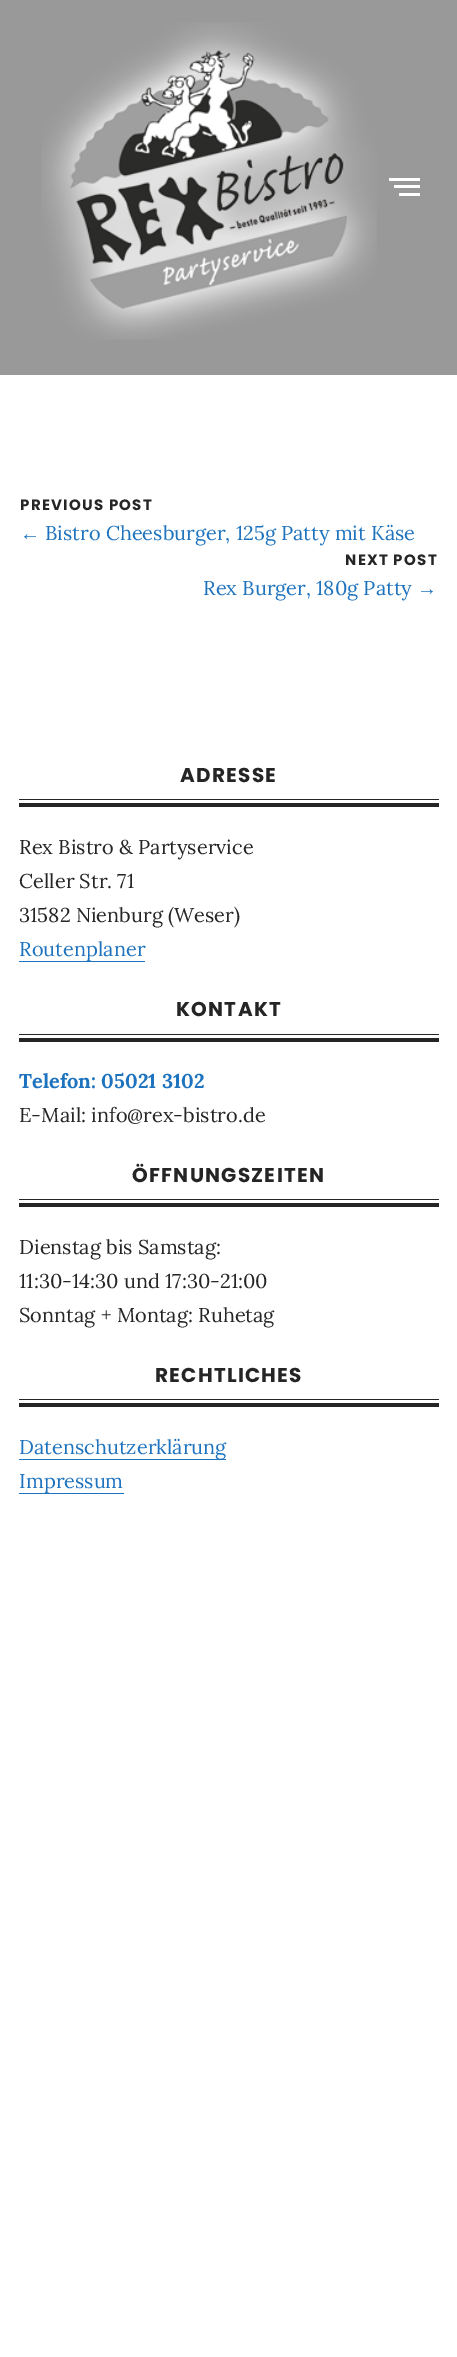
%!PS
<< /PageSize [457 2357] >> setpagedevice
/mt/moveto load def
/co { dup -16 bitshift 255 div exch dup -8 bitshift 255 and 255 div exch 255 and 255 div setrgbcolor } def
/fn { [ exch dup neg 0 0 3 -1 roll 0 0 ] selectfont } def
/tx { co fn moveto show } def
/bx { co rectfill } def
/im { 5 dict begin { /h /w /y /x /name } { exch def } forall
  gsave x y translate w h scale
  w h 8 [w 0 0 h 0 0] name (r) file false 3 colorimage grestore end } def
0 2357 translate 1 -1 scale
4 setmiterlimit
0 0 457 2357 16#FFFFFF bx
0 0 457 375 16#999999 bx
(media/1.raw) 41 22 336 318 im
389 178 31 3 16#FFFFFF bx
394 185 26 3 16#FFFFFF bx
399 193 21 3 16#FFFFFF bx
19 799 420 1 16#252525 bx
19 803 420 4 16#252525 bx
19 961 126 1 16#1E73BE bx
19 1034 420 1 16#252525 bx
19 1038 420 4 16#252525 bx
19 1199 420 1 16#252525 bx
19 1203 420 4 16#252525 bx
19 1399 420 1 16#252525 bx
19 1403 420 4 16#252525 bx
19 1459 207 1 16#1E73BE bx
19 1493 105 1 16#1E73BE bx
/Poppins-Bold 15 fn
16#252525 co
20 510 mt 1.25 0 (PREVIOUS POST) ashow
(←) 20 540 /LiberationSerif-Regular 20 16#1E73BE tx
(Bistro Cheesburger, 125g Patty mit Käse) 45 540 /Lora-Regular 20 16#1E73BE tx
/Poppins-Bold 15 fn
16#252525 co
345 565 mt 1.25 0 (NEXT POST) ashow
(Rex Burger, 180g Patty) 203 595 /Lora-Regular 20 16#1E73BE tx
(→) 417 595 /LiberationSerif-Regular 20 16#1E73BE tx
/Poppins-Bold 20 fn
16#252525 co
180 782 mt 1.25 0 (ADRESSE) ashow
(Rex Bistro & Partyservice) 19 854 /Lora-Regular 20 16#252525 tx
(Celler Str. 71) 19 888 /Lora-Regular 20 16#252525 tx
(31582 Nienburg \(Weser\)) 19 922 /Lora-Regular 20 16#252525 tx
(Routenplaner) 19 956 /Lora-Regular 20 16#1E73BE tx
/Poppins-Bold 20 fn
16#252525 co
176 1016 mt 1.25 0 (KONTAKT) ashow
(Telefon: 05021 3102) 19 1088 /Lora-Bold 20 16#1E73BE tx
(E-Mail: info@rex-bistro.de) 19 1122 /Lora-Regular 20 16#252525 tx
/Poppins-Bold 20 fn
132 1182 mt 1.25 0 (ÖFFNUNGSZEITEN) ashow
(Dienstag bis Samstag:) 19 1254 /Lora-Regular 20 16#252525 tx
(11:30-14:30 und 17:30-21:00) 19 1288 /Lora-Regular 20 16#252525 tx
(Sonntag + Montag: Ruhetag) 19 1322 /Lora-Regular 20 16#252525 tx
/Poppins-Bold 20 fn
155 1382 mt 1.25 0 (RECHTLICHES) ashow
(Datenschutzerklärung) 19 1454 /Lora-Regular 20 16#1E73BE tx
(Impressum) 19 1488 /Lora-Regular 20 16#1E73BE tx
showpage
